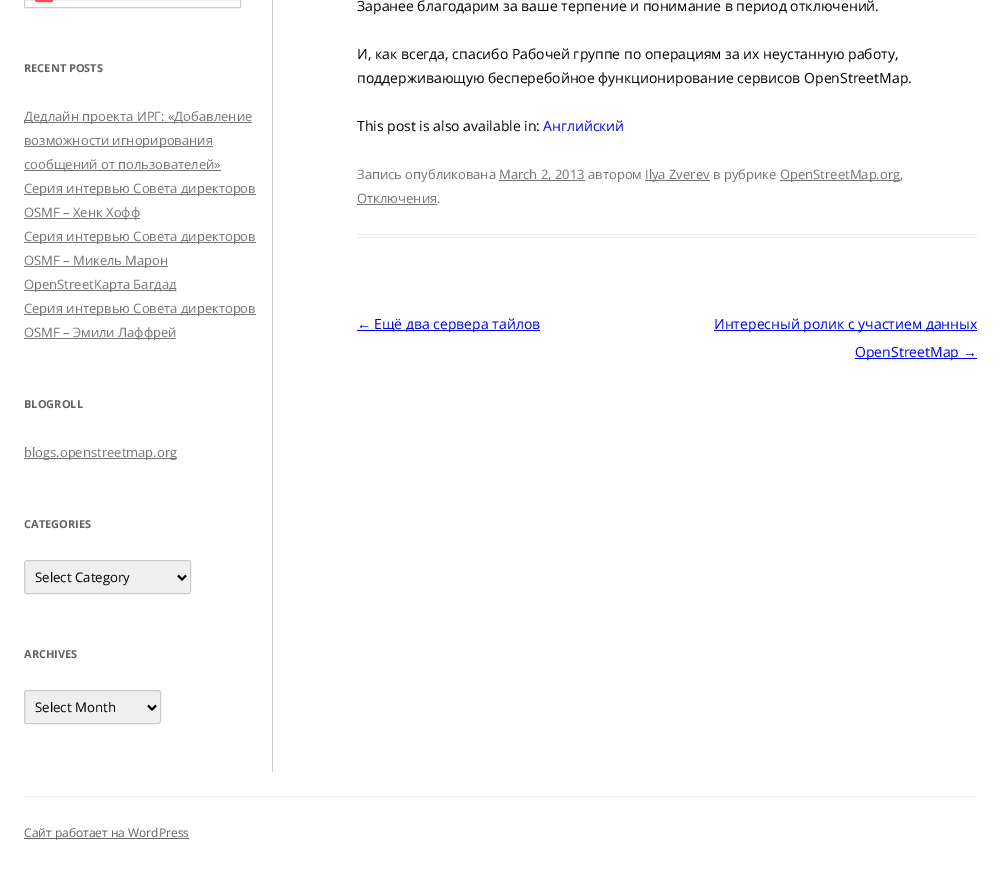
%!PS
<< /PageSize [1001 869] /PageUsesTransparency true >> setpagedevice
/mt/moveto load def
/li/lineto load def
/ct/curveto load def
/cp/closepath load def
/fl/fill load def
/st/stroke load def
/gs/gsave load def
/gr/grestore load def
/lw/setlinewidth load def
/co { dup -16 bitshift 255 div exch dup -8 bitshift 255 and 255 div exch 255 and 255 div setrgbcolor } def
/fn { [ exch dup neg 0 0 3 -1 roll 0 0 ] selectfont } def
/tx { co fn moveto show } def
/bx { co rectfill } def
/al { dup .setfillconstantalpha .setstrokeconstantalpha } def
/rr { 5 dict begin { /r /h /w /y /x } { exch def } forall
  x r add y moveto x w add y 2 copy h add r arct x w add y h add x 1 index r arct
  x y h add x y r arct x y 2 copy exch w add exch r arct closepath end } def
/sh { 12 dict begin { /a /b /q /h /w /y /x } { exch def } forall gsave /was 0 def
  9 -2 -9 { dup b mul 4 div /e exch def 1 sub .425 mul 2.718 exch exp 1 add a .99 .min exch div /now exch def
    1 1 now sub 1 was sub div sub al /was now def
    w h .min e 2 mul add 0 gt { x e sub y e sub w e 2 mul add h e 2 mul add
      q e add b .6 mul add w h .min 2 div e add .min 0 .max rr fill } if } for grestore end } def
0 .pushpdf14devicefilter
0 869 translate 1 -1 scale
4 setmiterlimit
0 0 1001 869 16#FFFFFF bx
272 0 1 772 16#CCCCCC bx
16#CDCDCD co
24.5 -.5 216 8 rectstroke
16#000000 co
35 -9 18 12 3 2 .2 sh
16#0052B4 co
38 -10 mt 48 -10 li 53 -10 53 -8.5 53 -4 ct 53 -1.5 53.5 2 50 2 ct 40 2 li 33.5 2 35 -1 35 -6 ct 35 -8 35.5 -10 38 -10 ct cp fl
gs
35 0 18 2 rectclip
16#FF4B55 co
35 -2 mt 35 3.5 40 2 44 2 ct 48 2 53 3.5 53 -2 ct cp fl
gr
24 122 228 1 16#757575 bx
24 146 189 1 16#757575 bx
24 170 197 1 16#757575 bx
24 194 232 1 16#757575 bx
24 218 116 1 16#757575 bx
24 242 232 1 16#757575 bx
24 266 144 1 16#757575 bx
24 290 152 1 16#757575 bx
24 314 232 1 16#757575 bx
24 338 152 1 16#757575 bx
24 458 153 1 16#757575 bx
16#EFEFEF co
24.5 560.5 166 33 2.5 rr gs fl gr
16#CCCCCC co
st
16#000000 co
2 lw
178 575.5 mt 182 579.5 li 186 575.5 li st
16#EFEFEF co
24.5 690.5 136 33 2.5 rr gs fl gr
16#CCCCCC co
1 lw
st
16#000000 co
2 lw
148 705.5 mt 152 709.5 li 156 705.5 li st
357 234 620 1 16#EDEDED bx
357 237 620 1 16#EDEDED bx
499 180 86 1 16#757575 bx
645 180 65 1 16#757575 bx
780 180 120 1 16#757575 bx
357 204 80 1 16#757575 bx
357 330 183 1 16#0000EE bx
714 330 263 1 16#0000EE bx
855 358 122 1 16#0000EE bx
24 796 953 1 16#EDEDED bx
24 838 165 1 16#686868 bx
(RECENT POSTS) 24 72 /OpenSans-Bold 11 16#636363 tx
(Дедлайн проекта ИРГ: «Добавление) 24 121 /OpenSans-Regular 13 16#757575 tx
(возможности игнорирования) 24 145 /OpenSans-Regular 13 16#757575 tx
(сообщений от пользователей») 24 169 /OpenSans-Regular 13 16#757575 tx
(Серия интервью Совета директоров) 24 193 /OpenSans-Regular 13 16#757575 tx
(OSMF – Хенк Хофф) 24 217 /OpenSans-Regular 13 16#757575 tx
(Серия интервью Совета директоров) 24 241 /OpenSans-Regular 13 16#757575 tx
(OSMF – Микель Марон) 24 265 /OpenSans-Regular 13 16#757575 tx
(OpenStreetКарта Багдад) 24 289 /OpenSans-Regular 13 16#757575 tx
(Серия интервью Совета директоров) 24 313 /OpenSans-Regular 13 16#757575 tx
(OSMF – Эмили Лаффрей) 24 337 /OpenSans-Regular 13 16#757575 tx
(BLOGROLL) 24 408 /OpenSans-Bold 11 16#636363 tx
(blogs.openstreetmap.org) 24 457 /OpenSans-Regular 13 16#757575 tx
(CATEGORIES) 24 528 /OpenSans-Bold 11 16#636363 tx
(Select Category) 35 582 /OpenSans-Regular 13.25 16#000000 tx
(ARCHIVES) 24 658 /OpenSans-Bold 11 16#636363 tx
(Select Month) 35 712 /OpenSans-Regular 13.25 16#000000 tx
(Заранее благодарим за ваше терпение и понимание в период отключений.) 357 11 /OpenSans-Regular 14 16#000000 tx
(И, как всегда, спасибо Рабочей группе по операциям за их неустанную работу,) 357 59 /OpenSans-Regular 14 16#000000 tx
(поддерживающую бесперебойное функционирование сервисов OpenStreetMap.) 357 83 /OpenSans-Regular 14 16#000000 tx
(This post is also available in:) 357 131 /OpenSans-Regular 14 16#000000 tx
(Английский) 543 131 /OpenSans-Regular 14 16#0000EE tx
(Запись опубликована) 357 179 /OpenSans-Regular 13 16#757575 tx
(March 2, 2013 автором) 499 179 /OpenSans-Regular 13 16#757575 tx
(Ilya Zverev в рубрике) 645 179 /OpenSans-Regular 13 16#757575 tx
(OpenStreetMap.org,) 780 179 /OpenSans-Regular 13 16#757575 tx
(Отключения.) 357 203 /OpenSans-Regular 13 16#757575 tx
(←) 357 329 /LiberationSans-Regular 14 16#0000EE tx
(Ещё два сервера тайлов) 374 329 /OpenSans-Regular 14 16#0000EE tx
(Интересный ролик с участием данных) 714 329 /OpenSans-Regular 14 16#0000EE tx
(OpenStreetMap) 855 357 /OpenSans-Regular 14 16#0000EE tx
(→) 963 357 /LiberationSans-Regular 14 16#0000EE tx
(Сайт работает на WordPress) 24 837 /OpenSans-Regular 12 16#636363 tx
.poppdf14devicefilter showpage
